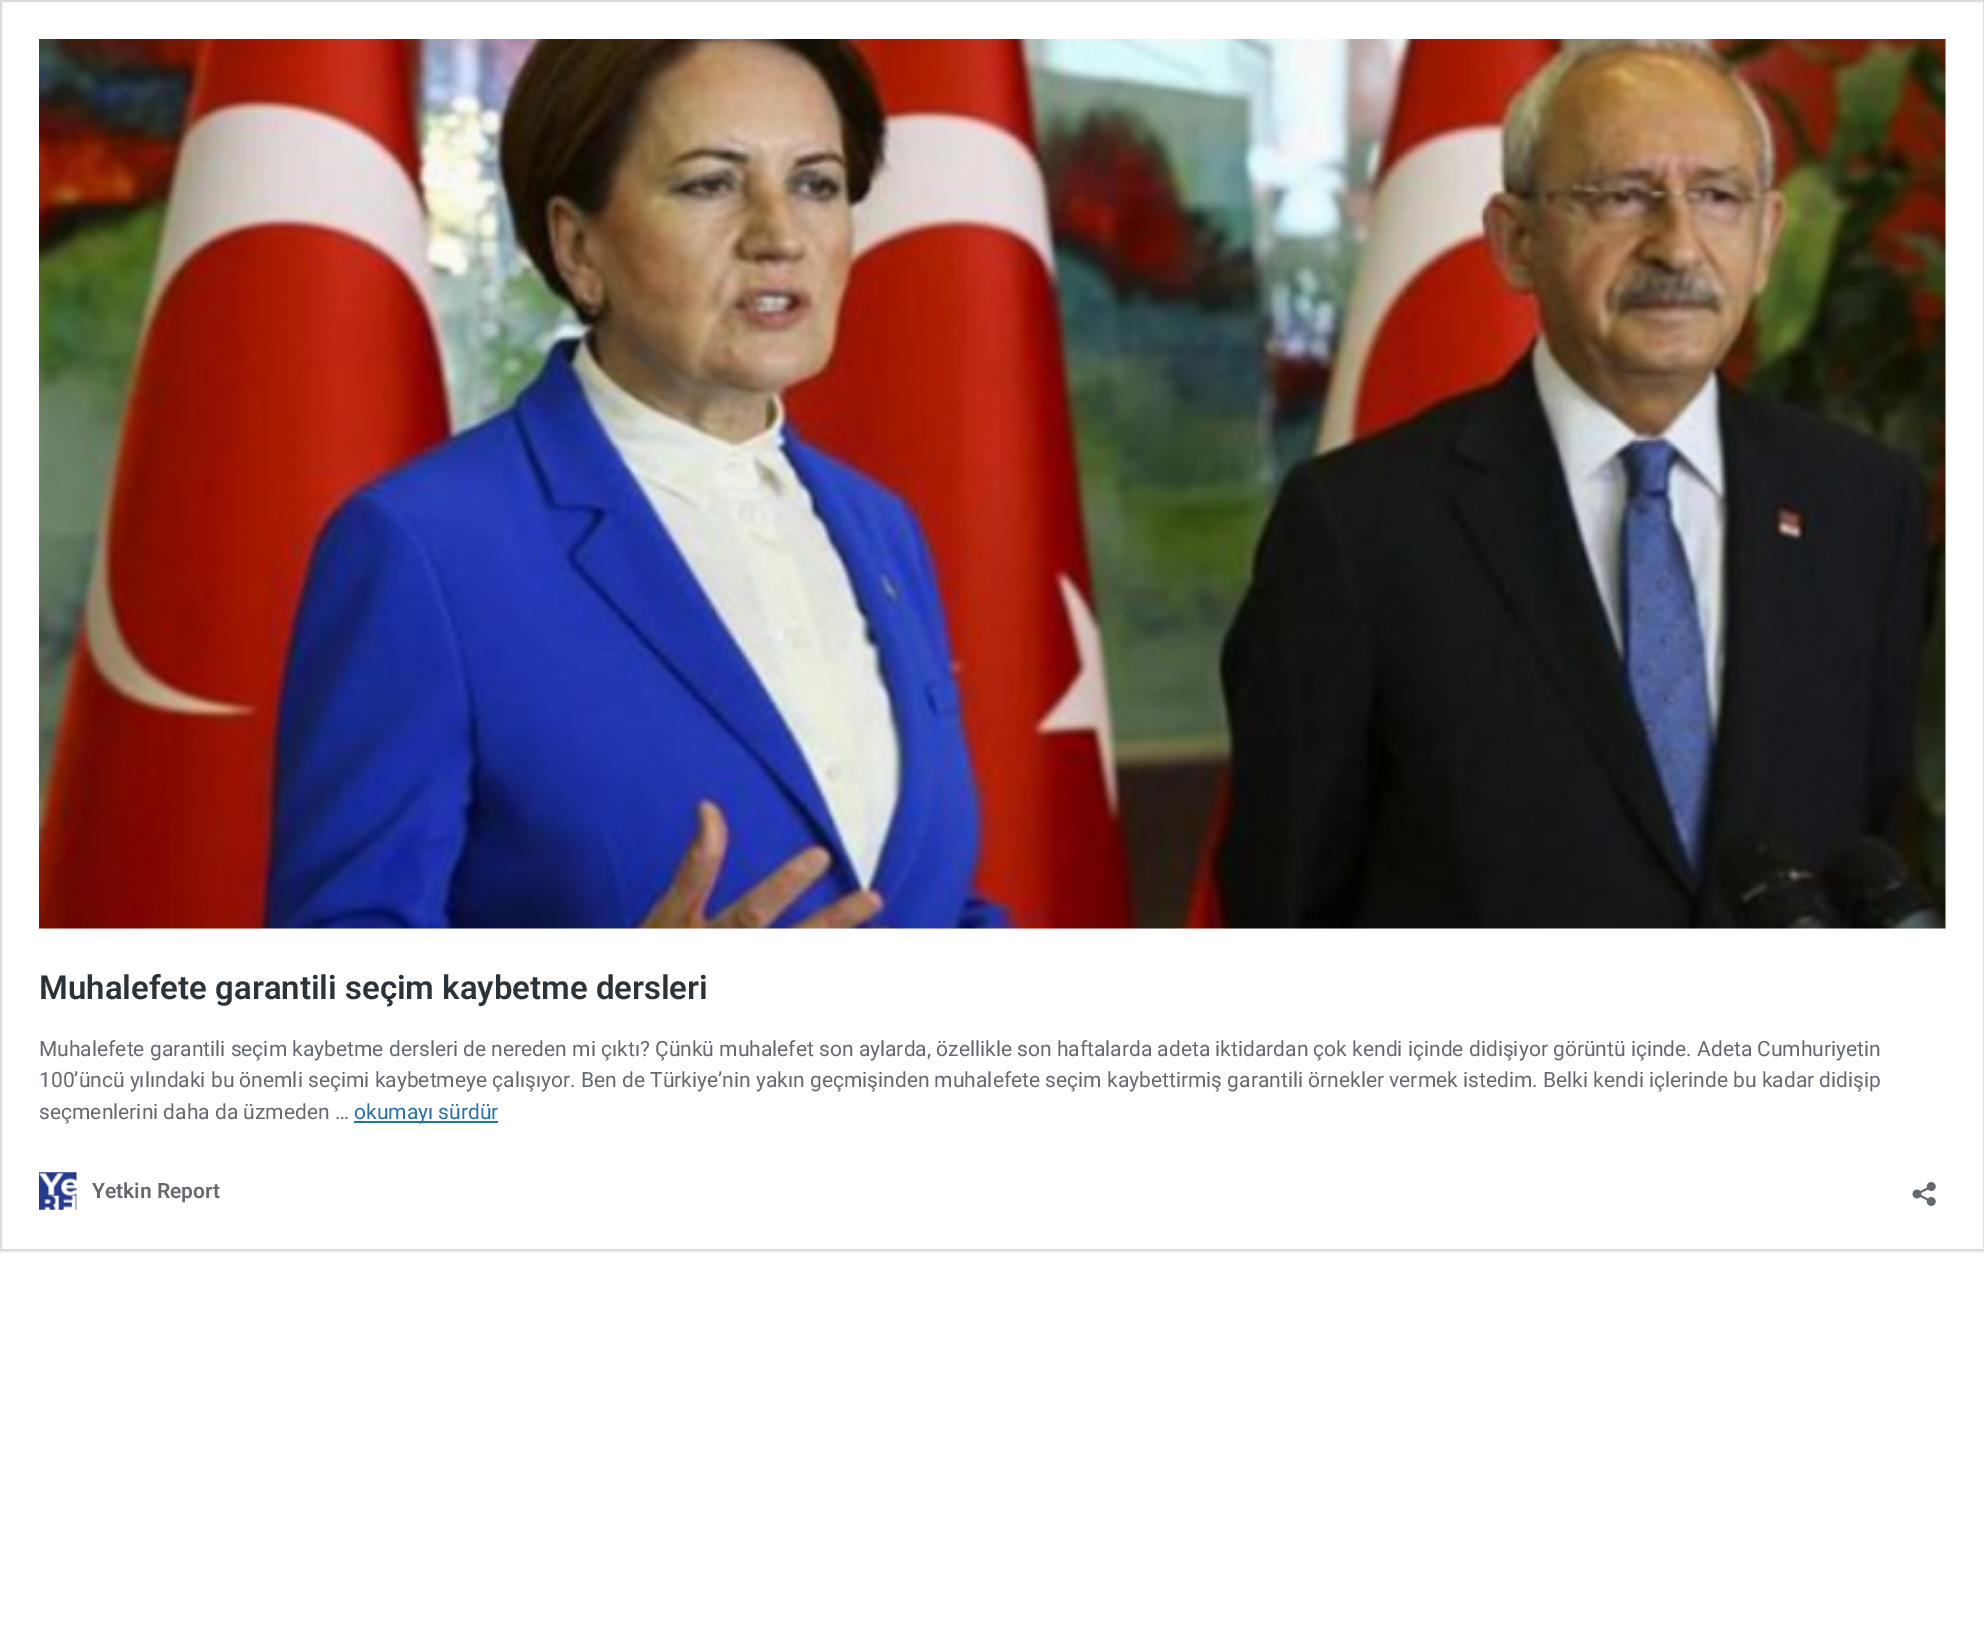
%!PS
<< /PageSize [1984 1626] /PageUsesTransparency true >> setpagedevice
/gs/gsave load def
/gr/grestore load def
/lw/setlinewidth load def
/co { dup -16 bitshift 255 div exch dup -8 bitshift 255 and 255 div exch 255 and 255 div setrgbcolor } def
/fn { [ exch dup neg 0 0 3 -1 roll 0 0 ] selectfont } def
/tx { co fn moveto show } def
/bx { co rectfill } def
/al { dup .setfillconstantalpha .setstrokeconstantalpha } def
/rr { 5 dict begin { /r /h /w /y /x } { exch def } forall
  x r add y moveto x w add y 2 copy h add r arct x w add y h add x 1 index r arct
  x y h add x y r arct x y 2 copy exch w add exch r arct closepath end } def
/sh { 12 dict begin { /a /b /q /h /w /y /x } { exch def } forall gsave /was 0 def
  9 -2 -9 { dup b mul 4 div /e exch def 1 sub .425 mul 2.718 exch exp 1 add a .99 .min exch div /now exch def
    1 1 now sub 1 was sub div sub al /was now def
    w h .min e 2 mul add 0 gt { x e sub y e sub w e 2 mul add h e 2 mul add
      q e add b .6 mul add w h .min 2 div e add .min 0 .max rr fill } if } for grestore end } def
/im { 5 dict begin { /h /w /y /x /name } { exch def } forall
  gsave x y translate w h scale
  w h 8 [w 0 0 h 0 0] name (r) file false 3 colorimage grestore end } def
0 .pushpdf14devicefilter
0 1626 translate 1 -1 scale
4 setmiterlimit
0 0 1984 1626 16#FFFFFF bx
gs
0 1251 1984 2 rectclip
16#000000 co
0 2 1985 1251 0 1 .05 sh
gr
16#DCDCDE co
2 lw
1 1 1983 1249 rectstroke
(media/1.raw) 39 39 1907 890 im
354 1121 144 2 16#2271B1 bx
(media/2.raw) 39 1172 38 38 im
(media/3.raw) 1912 1182 24 24 im
(Muhalefete garantili seçim kaybetme dersleri) 39 999 /Roboto-SemiBold 33 16#2C3338 tx
(Muhalefete garantili seçim kaybetme dersleri de nereden mi çıktı? Çünkü muhalefet son aylarda, özellikle son haftalarda adeta iktidardan çok kendi içinde didişiyor görüntü içinde. Adeta Cumhuriyetin) 39 1056 /Roboto-Regular 21 16#646970 tx
(100’üncü yılındaki bu önemli seçimi kaybetmeye çalışıyor. Ben de Türkiye’nin yakın geçmişinden muhalefete seçim kaybettirmiş garantili örnekler vermek istedim. Belki kendi içlerinde bu kadar didişip) 39 1087 /Roboto-Regular 21 16#646970 tx
(seçmenlerini daha da üzmeden …) 39 1119 /Roboto-Regular 21 16#646970 tx
(okumayı sürdür) 354 1119 /Roboto-Regular 21 16#2271B1 tx
(Yetkin Report) 92 1198 /Roboto-SemiBold 21 16#646970 tx
.poppdf14devicefilter showpage
